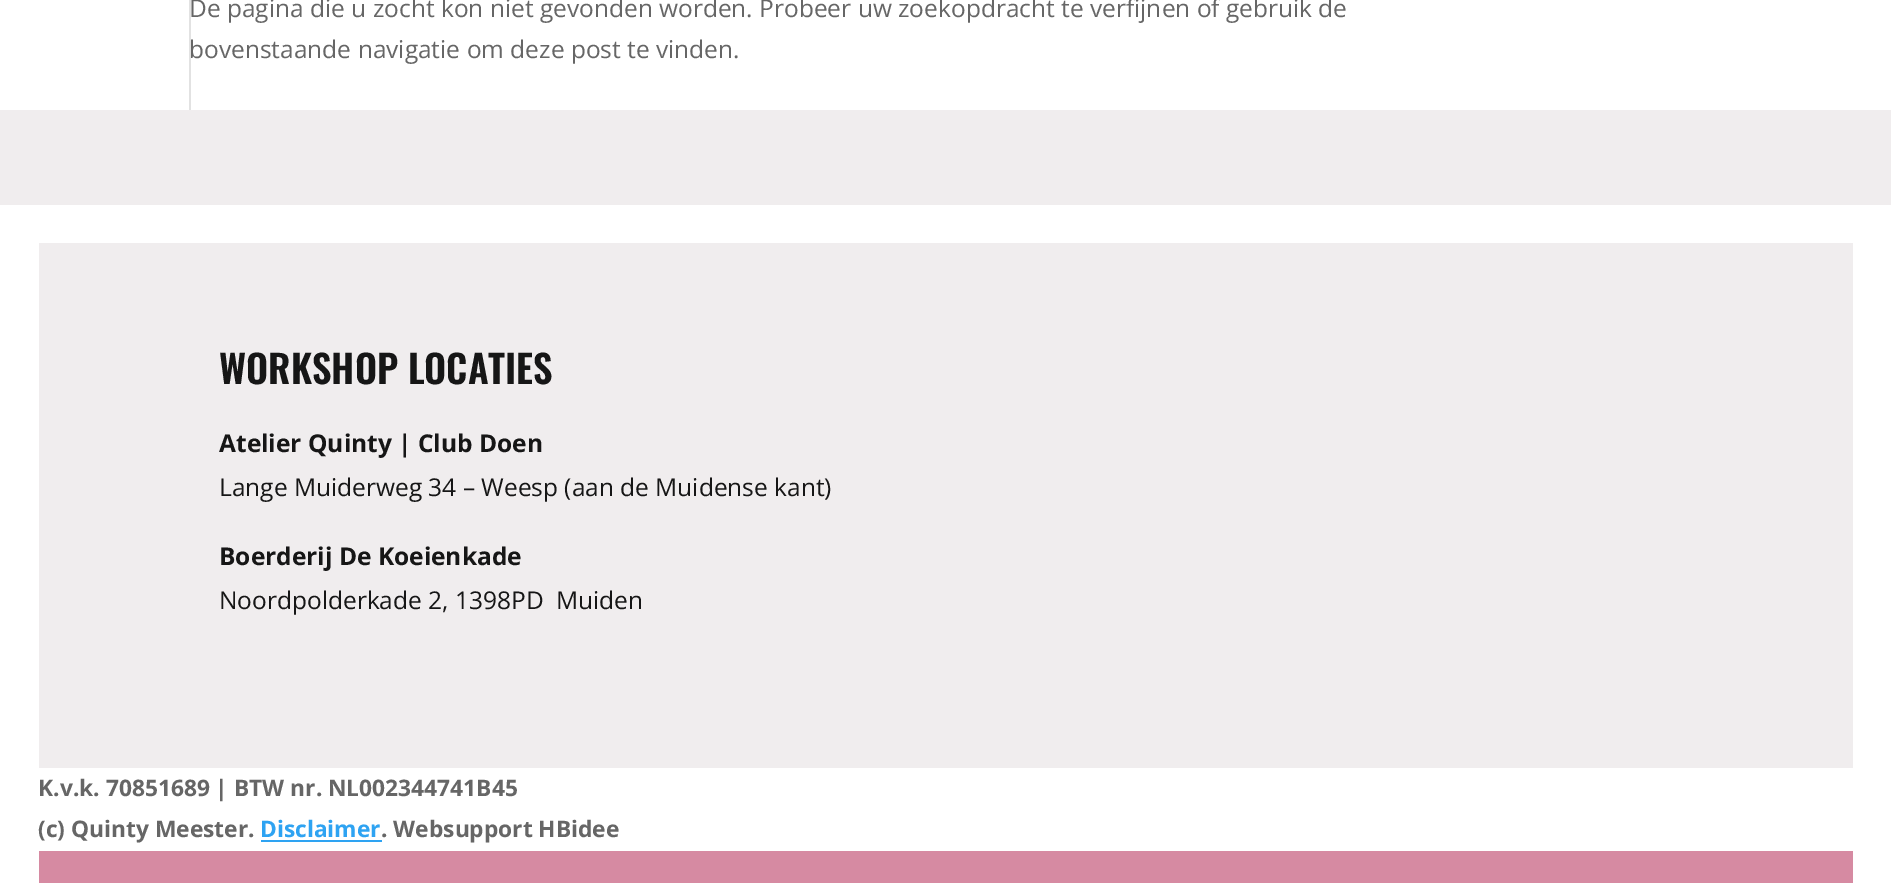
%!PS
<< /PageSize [1891 883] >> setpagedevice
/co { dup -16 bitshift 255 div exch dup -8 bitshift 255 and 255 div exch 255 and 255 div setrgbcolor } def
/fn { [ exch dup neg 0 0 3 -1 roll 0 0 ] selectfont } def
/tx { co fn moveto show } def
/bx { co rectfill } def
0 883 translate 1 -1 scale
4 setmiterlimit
0 0 1891 883 16#FFFFFF bx
189 0 2 110 16#E2E2E2 bx
0 110 1891 95 16#F0EDEE bx
39 243 1814 525 16#F0EDEE bx
261 840 121 2 16#2EA3F2 bx
39 851 1814 32 16#D68AA2 bx
(De pagina die u zocht kon niet gevonden worden. Probeer uw zoekopdracht te verfijnen of gebruik de) 189 17 /OpenSans-Regular 24.5 16#666666 tx
(bovenstaande navigatie om deze post te vinden.) 189 58 /OpenSans-Regular 24.5 16#666666 tx
(WORKSHOP LOCATIES) 219 384 /Oswald-SemiBold 38.5 16#161616 tx
(Atelier Quinty | Club Doen) 219 452 /OpenSans-Bold 24.5 16#161616 tx
(Lange Muiderweg 34 – Weesp \(aan de Muidense kant\)) 219 496 /OpenSans-Regular 24.5 16#161616 tx
(Boerderij De Koeienkade) 219 565 /OpenSans-Bold 24.5 16#161616 tx
(Noordpolderkade 2, 1398PD  Muiden) 219 609 /OpenSans-Regular 24.5 16#161616 tx
(K.v.k. 70851689 | BTW nr. NL002344741B45) 38 796 /OpenSans-Bold 22.75 16#666666 tx
(\(c\) Quinty Meester.) 38 837 /OpenSans-Bold 22.75 16#666666 tx
(Disclaimer) 260 837 /OpenSans-Bold 22.75 16#2EA3F2 tx
(. Websupport HBidee) 381 837 /OpenSans-Bold 22.75 16#666666 tx
showpage
